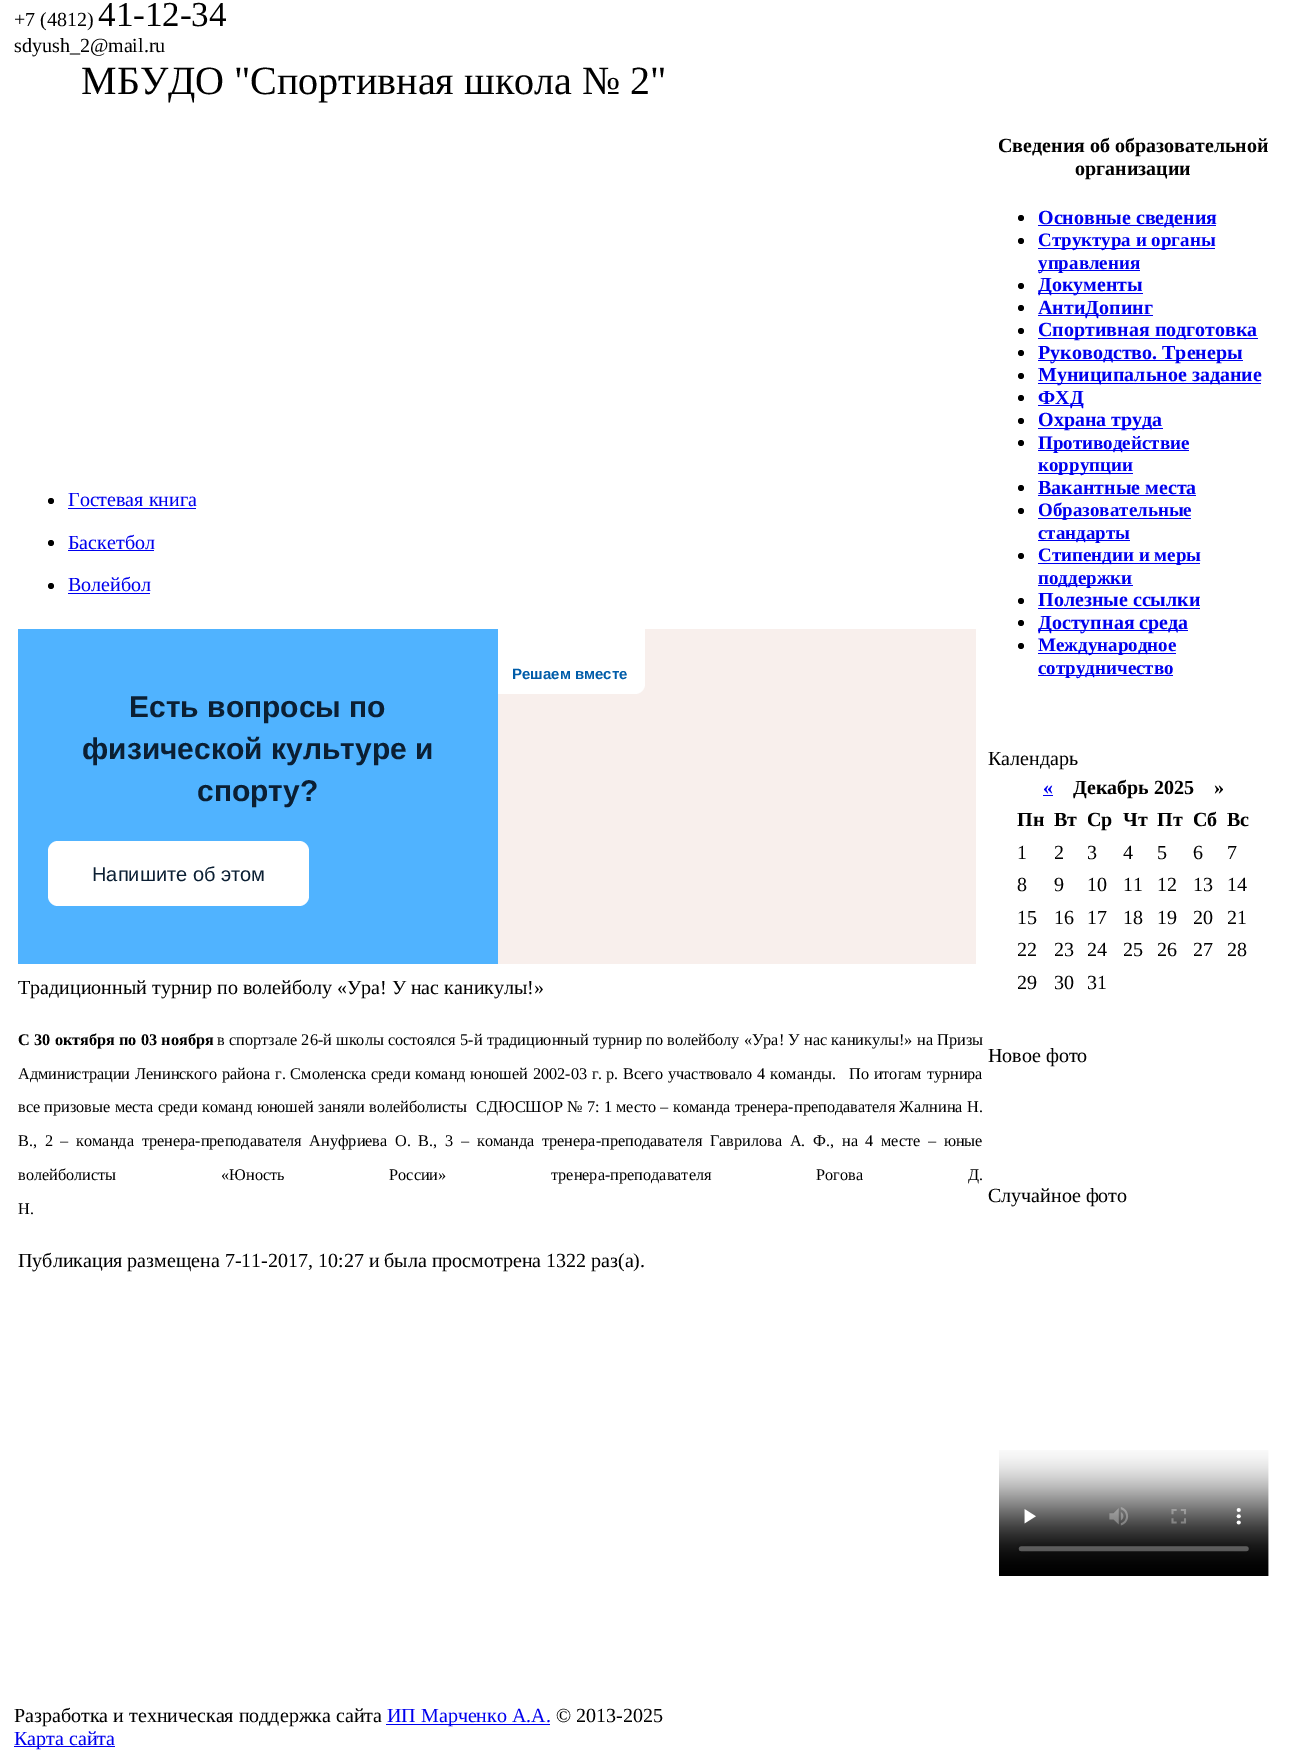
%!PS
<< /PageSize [1296 1761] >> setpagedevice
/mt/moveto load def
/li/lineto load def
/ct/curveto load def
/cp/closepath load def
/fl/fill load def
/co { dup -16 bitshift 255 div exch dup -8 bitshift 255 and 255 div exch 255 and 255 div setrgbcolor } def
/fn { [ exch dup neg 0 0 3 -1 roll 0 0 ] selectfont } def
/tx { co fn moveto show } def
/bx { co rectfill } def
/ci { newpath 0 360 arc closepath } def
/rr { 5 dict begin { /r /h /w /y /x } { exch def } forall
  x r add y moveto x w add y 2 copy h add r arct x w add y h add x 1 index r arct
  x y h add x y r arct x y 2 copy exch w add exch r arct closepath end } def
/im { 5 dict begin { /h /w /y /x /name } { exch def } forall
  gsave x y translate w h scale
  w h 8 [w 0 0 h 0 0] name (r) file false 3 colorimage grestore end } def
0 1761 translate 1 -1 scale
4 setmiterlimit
0 0 1296 1761 16#FFFFFF bx
16#000000 co
51 501 3 ci fl
68 508 128 1 16#0000EE bx
16#000000 co
51 543 3 ci fl
68 550 86 1 16#0000EE bx
16#000000 co
51 586 3 ci fl
68 593 82 1 16#0000EE bx
18 629 480 335 16#50B3FF bx
498 629 478 335 16#F8EFEC bx
16#FFFFFF co
498 629 mt 645 629 li 645 684 li 645 689.5 640.5 694 635 694 ct 498 694 li cp fl
48 841 261 65 10 rr fl
16#000000 co
1021 218 3 ci fl
1038 225 178 1 16#0000EE bx
16#000000 co
1021 241 3 ci fl
1038 248 177 1 16#0000EE bx
1038 270 102 1 16#0000EE bx
16#000000 co
1021 286 3 ci fl
1038 293 105 1 16#0000EE bx
16#000000 co
1021 308 3 ci fl
1038 315 115 1 16#0000EE bx
16#000000 co
1021 331 3 ci fl
1038 338 220 1 16#0000EE bx
16#000000 co
1021 353 3 ci fl
1038 360 205 1 16#0000EE bx
16#000000 co
1021 376 3 ci fl
1038 383 223 1 16#0000EE bx
16#000000 co
1021 398 3 ci fl
1038 405 45 1 16#0000EE bx
16#000000 co
1021 421 3 ci fl
1038 428 125 1 16#0000EE bx
16#000000 co
1021 443 3 ci fl
1038 450 151 1 16#0000EE bx
1038 473 95 1 16#0000EE bx
16#000000 co
1021 488 3 ci fl
1038 495 158 1 16#0000EE bx
16#000000 co
1021 511 3 ci fl
1038 518 153 1 16#0000EE bx
1038 540 92 1 16#0000EE bx
16#000000 co
1021 556 3 ci fl
1038 563 162 1 16#0000EE bx
1038 585 95 1 16#0000EE bx
16#000000 co
1021 601 3 ci fl
1038 608 162 1 16#0000EE bx
16#000000 co
1021 623 3 ci fl
1038 630 150 1 16#0000EE bx
16#000000 co
1021 646 3 ci fl
1038 653 138 1 16#0000EE bx
1038 675 135 1 16#0000EE bx
1043 795 10 1 16#0000EE bx
(media/1.raw) 999 1450 270 126 im
386 1724 164 1 16#0000EE bx
14 1746 101 1 16#0000EE bx
(+7 \(4812\)) 14 26 /LiberationSerif-Regular 20 16#000000 tx
(41-12-34) 98 26 /LiberationSerif-Regular 35 16#000000 tx
(sdyush_2@mail.ru) 14 52 /LiberationSerif-Regular 20 16#000000 tx
(МБУДО "Спортивная школа № 2") 81 94 /LiberationSerif-Regular 40 16#000000 tx
(Гостевая книга) 68 506 /LiberationSerif-Regular 20 16#0000EE tx
(Баскетбол) 68 549 /LiberationSerif-Regular 20 16#0000EE tx
(Волейбол) 68 591 /LiberationSerif-Regular 20 16#0000EE tx
(Решаем вместе) 512 679 /LiberationSans-Bold 15 16#005CA9 tx
(Есть вопросы по) 129 717 /LiberationSans-Bold 30 16#0B1F33 tx
(физической культуре и) 82 759 /LiberationSans-Bold 30 16#0B1F33 tx
(спорту?) 197 801 /LiberationSans-Bold 30 16#0B1F33 tx
(Напишите об этом) 92 881 /LiberationSans-Regular 20 16#0B1F33 tx
(Традиционный турнир по волейболу «Ура! У нас каникулы!») 18 994 /LiberationSerif-Regular 20 16#000000 tx
/LiberationSerif-Bold 16.25 fn
18 1045 mt .2 0 32 (С 30 октября по 03 ноября) widthshow
/LiberationSerif-Regular 16.25 fn
217 1045 mt .2 0 32 (в спортзале 26-й школы состоялся 5-й традиционный турнир по волейболу «Ура! У нас каникулы!» на Призы) widthshow
18 1079 mt .75 0 32 (Администрации Ленинского района г. Смоленска среди команд юношей 2002-03 г.) widthshow
606 1079 mt .75 0 32 (р. Всего участвовало 4 команды.) widthshow
849 1079 mt .75 0 32 (По итогам турнира) widthshow
18 1112 mt .25 0 32 (все призовые места среди команд юношей заняли волейболисты) widthshow
476 1112 mt .25 0 32 (СДЮСШОР № 7: 1 место – команда тренера-преподавателя Жалнина Н.) widthshow
18 1146 mt 3.6 0 32 (В., 2 – команда тренера-преподавателя Ануфриева О. В., 3 – команда тренера-преподавателя Гаврилова А. Ф., на 4 месте – юные) widthshow
18 1180 mt 100.75 0 32 (волейболисты «Юность России» тренера-преподавателя Рогова Д.) widthshow
(Н.) 18 1214 /LiberationSerif-Regular 16.25 16#000000 tx
(Публикация размещена 7-11-2017, 10:27 и была просмотрена 1322 раз\(а\).) 18 1267 /LiberationSerif-Regular 20 16#000000 tx
(Сведения об образовательной) 998 152 /LiberationSerif-Bold 20 16#000000 tx
(организации) 1075 175 /LiberationSerif-Bold 20 16#000000 tx
(Основные сведения) 1038 224 /LiberationSerif-Bold 20 16#0000EE tx
(Структура и органы) 1038 246 /LiberationSerif-Bold 19 16#0000EE tx
(управления) 1038 269 /LiberationSerif-Bold 19 16#0000EE tx
(Документы) 1038 291 /LiberationSerif-Bold 20 16#0000EE tx
(АнтиДопинг) 1038 314 /LiberationSerif-Bold 20 16#0000EE tx
(Спортивная подготовка) 1038 336 /LiberationSerif-Bold 20 16#0000EE tx
(Руководство. Тренеры) 1038 359 /LiberationSerif-Bold 20 16#0000EE tx
(Муниципальное задание) 1038 381 /LiberationSerif-Bold 20 16#0000EE tx
(ФХД) 1038 404 /LiberationSerif-Bold 20 16#0000EE tx
(Охрана труда) 1038 426 /LiberationSerif-Bold 20 16#0000EE tx
(Противодействие) 1038 449 /LiberationSerif-Bold 19 16#0000EE tx
(коррупции) 1038 471 /LiberationSerif-Bold 19 16#0000EE tx
(Вакантные места) 1038 494 /LiberationSerif-Bold 20 16#0000EE tx
(Образовательные) 1038 516 /LiberationSerif-Bold 19 16#0000EE tx
(стандарты) 1038 539 /LiberationSerif-Bold 19 16#0000EE tx
(Стипендии и меры) 1038 561 /LiberationSerif-Bold 19 16#0000EE tx
(поддержки) 1038 584 /LiberationSerif-Bold 19 16#0000EE tx
(Полезные ссылки) 1038 606 /LiberationSerif-Bold 20 16#0000EE tx
(Доступная среда) 1038 629 /LiberationSerif-Bold 20 16#0000EE tx
(Международное) 1038 651 /LiberationSerif-Bold 19 16#0000EE tx
(сотрудничество) 1038 674 /LiberationSerif-Bold 19 16#0000EE tx
(Календарь) 988 765 /LiberationSerif-Regular 20 16#000000 tx
(«) 1043 794 /LiberationSerif-Bold 20 16#0000EE tx
(Декабрь 2025    ») 1073 794 /LiberationSerif-Bold 20 16#000000 tx
(Пн) 1017 826 /LiberationSerif-Bold 20 16#000000 tx
(Вт) 1054 826 /LiberationSerif-Bold 20 16#000000 tx
(Ср) 1087 826 /LiberationSerif-Bold 20 16#000000 tx
(Чт) 1123 826 /LiberationSerif-Bold 20 16#000000 tx
(Пт) 1157 826 /LiberationSerif-Bold 20 16#000000 tx
(Сб) 1193 826 /LiberationSerif-Bold 20 16#000000 tx
(Вс) 1227 826 /LiberationSerif-Bold 20 16#000000 tx
(1) 1017 859 /LiberationSerif-Regular 20 16#000000 tx
(2) 1054 859 /LiberationSerif-Regular 20 16#000000 tx
(3) 1087 859 /LiberationSerif-Regular 20 16#000000 tx
(4) 1123 859 /LiberationSerif-Regular 20 16#000000 tx
(5) 1157 859 /LiberationSerif-Regular 20 16#000000 tx
(6) 1193 859 /LiberationSerif-Regular 20 16#000000 tx
(7) 1227 859 /LiberationSerif-Regular 20 16#000000 tx
(8) 1017 891 /LiberationSerif-Regular 20 16#000000 tx
(9) 1054 891 /LiberationSerif-Regular 20 16#000000 tx
(10) 1087 891 /LiberationSerif-Regular 20 16#000000 tx
(11) 1123 891 /LiberationSerif-Regular 20 16#000000 tx
(12) 1157 891 /LiberationSerif-Regular 20 16#000000 tx
(13) 1193 891 /LiberationSerif-Regular 20 16#000000 tx
(14) 1227 891 /LiberationSerif-Regular 20 16#000000 tx
(15) 1017 924 /LiberationSerif-Regular 20 16#000000 tx
(16) 1054 924 /LiberationSerif-Regular 20 16#000000 tx
(17) 1087 924 /LiberationSerif-Regular 20 16#000000 tx
(18) 1123 924 /LiberationSerif-Regular 20 16#000000 tx
(19) 1157 924 /LiberationSerif-Regular 20 16#000000 tx
(20) 1193 924 /LiberationSerif-Regular 20 16#000000 tx
(21) 1227 924 /LiberationSerif-Regular 20 16#000000 tx
(22) 1017 956 /LiberationSerif-Regular 20 16#000000 tx
(23) 1054 956 /LiberationSerif-Regular 20 16#000000 tx
(24) 1087 956 /LiberationSerif-Regular 20 16#000000 tx
(25) 1123 956 /LiberationSerif-Regular 20 16#000000 tx
(26) 1157 956 /LiberationSerif-Regular 20 16#000000 tx
(27) 1193 956 /LiberationSerif-Regular 20 16#000000 tx
(28) 1227 956 /LiberationSerif-Regular 20 16#000000 tx
(29) 1017 989 /LiberationSerif-Regular 20 16#000000 tx
(30) 1054 989 /LiberationSerif-Regular 20 16#000000 tx
(31) 1087 989 /LiberationSerif-Regular 20 16#000000 tx
(Новое фото) 988 1062 /LiberationSerif-Regular 20 16#000000 tx
(Случайное фото) 988 1202 /LiberationSerif-Regular 20 16#000000 tx
(Разработка и техническая поддержка сайта) 14 1722 /LiberationSerif-Regular 20 16#000000 tx
(ИП Марченко А.А.) 387 1722 /LiberationSerif-Regular 20 16#0000EE tx
(© 2013-2025) 556 1722 /LiberationSerif-Regular 20 16#000000 tx
(Карта сайта) 14 1745 /LiberationSerif-Regular 20 16#0000EE tx
showpage
